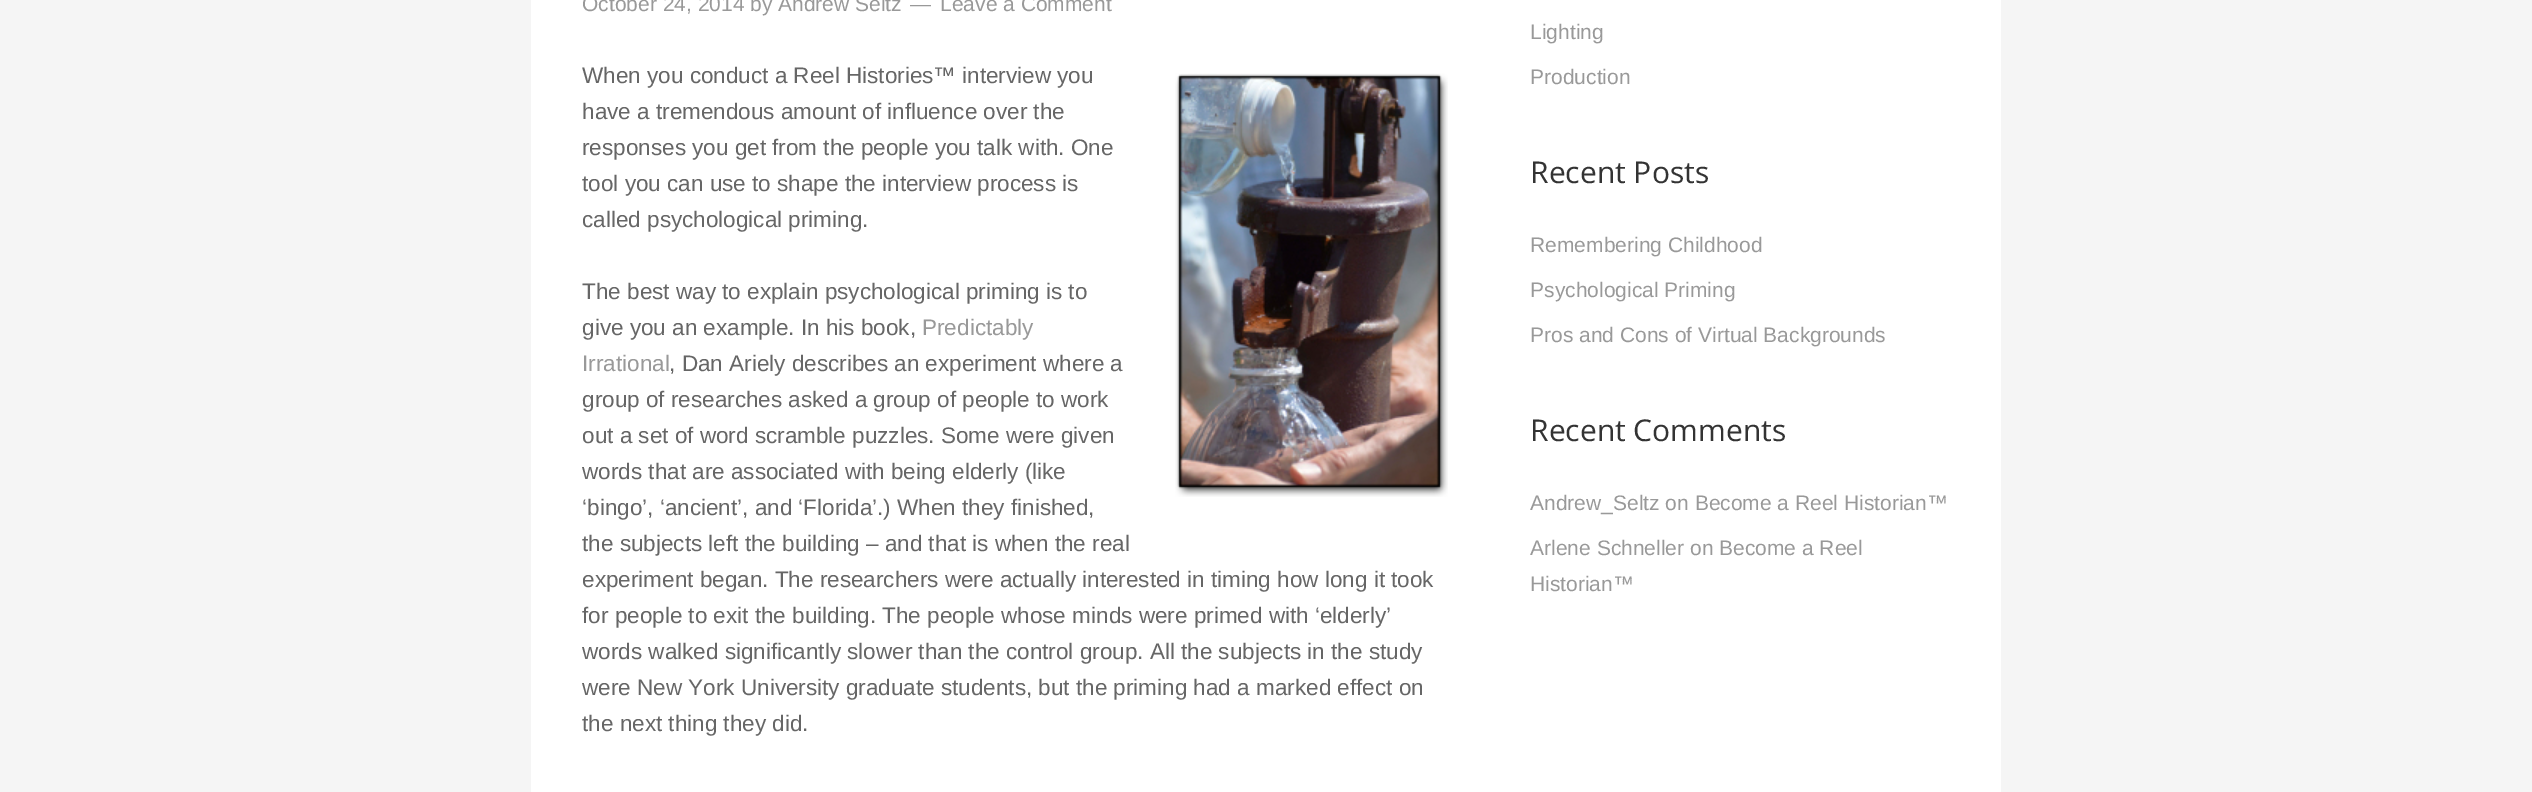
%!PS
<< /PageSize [2532 792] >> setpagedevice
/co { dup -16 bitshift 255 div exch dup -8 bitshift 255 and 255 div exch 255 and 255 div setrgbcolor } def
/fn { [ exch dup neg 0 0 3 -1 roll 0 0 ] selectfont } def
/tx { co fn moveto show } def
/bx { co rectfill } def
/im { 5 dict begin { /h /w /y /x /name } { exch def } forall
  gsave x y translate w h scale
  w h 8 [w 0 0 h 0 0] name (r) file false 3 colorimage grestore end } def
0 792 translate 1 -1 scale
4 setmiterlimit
0 0 2532 792 16#F5F5F5 bx
531 0 1470 792 16#FFFFFF bx
(media/1.raw) 1175 73 273 424 im
(October 24, 2014 by Andrew Seltz) 582 11 /LiberationSans-Regular 21 16#999999 tx
(—) 910 11 /LiberationSans-Regular 21 16#999999 tx
(Leave a Comment) 940 11 /LiberationSans-Regular 21 16#999999 tx
(When you conduct a Reel Histories™ interview you) 582 83 /LiberationSans-Regular 22.5 16#666666 tx
(have a tremendous amount of influence over the) 582 119 /LiberationSans-Regular 22.5 16#666666 tx
(responses you get from the people you talk with. One) 582 155 /LiberationSans-Regular 22.5 16#666666 tx
(tool you can use to shape the interview process is) 582 191 /LiberationSans-Regular 22.5 16#666666 tx
(called psychological priming.) 582 227 /LiberationSans-Regular 22.5 16#666666 tx
(The best way to explain psychological priming is to) 582 299 /LiberationSans-Regular 22.5 16#666666 tx
(give you an example. In his book,) 582 335 /LiberationSans-Regular 22.5 16#666666 tx
(Predictably) 922 335 /LiberationSans-Regular 22.5 16#999999 tx
(Irrational) 582 371 /LiberationSans-Regular 22.5 16#999999 tx
(, Dan Ariely describes an experiment where a) 669 371 /LiberationSans-Regular 22.5 16#666666 tx
(group of researches asked a group of people to work) 582 407 /LiberationSans-Regular 22.5 16#666666 tx
(out a set of word scramble puzzles. Some were given) 582 443 /LiberationSans-Regular 22.5 16#666666 tx
(words that are associated with being elderly \(like) 582 479 /LiberationSans-Regular 22.5 16#666666 tx
(‘bingo’, ‘ancient’, and ‘Florida’.\) When they finished,) 582 515 /LiberationSans-Regular 22.5 16#666666 tx
(the subjects left the building – and that is when the real) 582 551 /LiberationSans-Regular 22.5 16#666666 tx
(experiment began. The researchers were actually interested in timing how long it took) 582 587 /LiberationSans-Regular 22.5 16#666666 tx
(for people to exit the building. The people whose minds were primed with ‘elderly’) 582 623 /LiberationSans-Regular 22.5 16#666666 tx
(words walked significantly slower than the control group. All the subjects in the study) 582 659 /LiberationSans-Regular 22.5 16#666666 tx
(were New York University graduate students, but the priming had a marked effect on) 582 695 /LiberationSans-Regular 22.5 16#666666 tx
(the next thing they did.) 582 731 /LiberationSans-Regular 22.5 16#666666 tx
(Lighting) 1530 39 /LiberationSans-Regular 21 16#999999 tx
(Production) 1530 84 /LiberationSans-Regular 21 16#999999 tx
(Recent Posts) 1530 183 /OpenSans-Regular 30 16#333333 tx
(Remembering Childhood) 1530 252 /LiberationSans-Regular 21 16#999999 tx
(Psychological Priming) 1530 297 /LiberationSans-Regular 21 16#999999 tx
(Pros and Cons of Virtual Backgrounds) 1530 342 /LiberationSans-Regular 21 16#999999 tx
(Recent Comments) 1530 441 /OpenSans-Regular 30 16#333333 tx
(Andrew_Seltz on Become a Reel Historian™) 1530 510 /LiberationSans-Regular 21 16#999999 tx
(Arlene Schneller on Become a Reel) 1530 555 /LiberationSans-Regular 21 16#999999 tx
(Historian™) 1530 591 /LiberationSans-Regular 21 16#999999 tx
showpage
